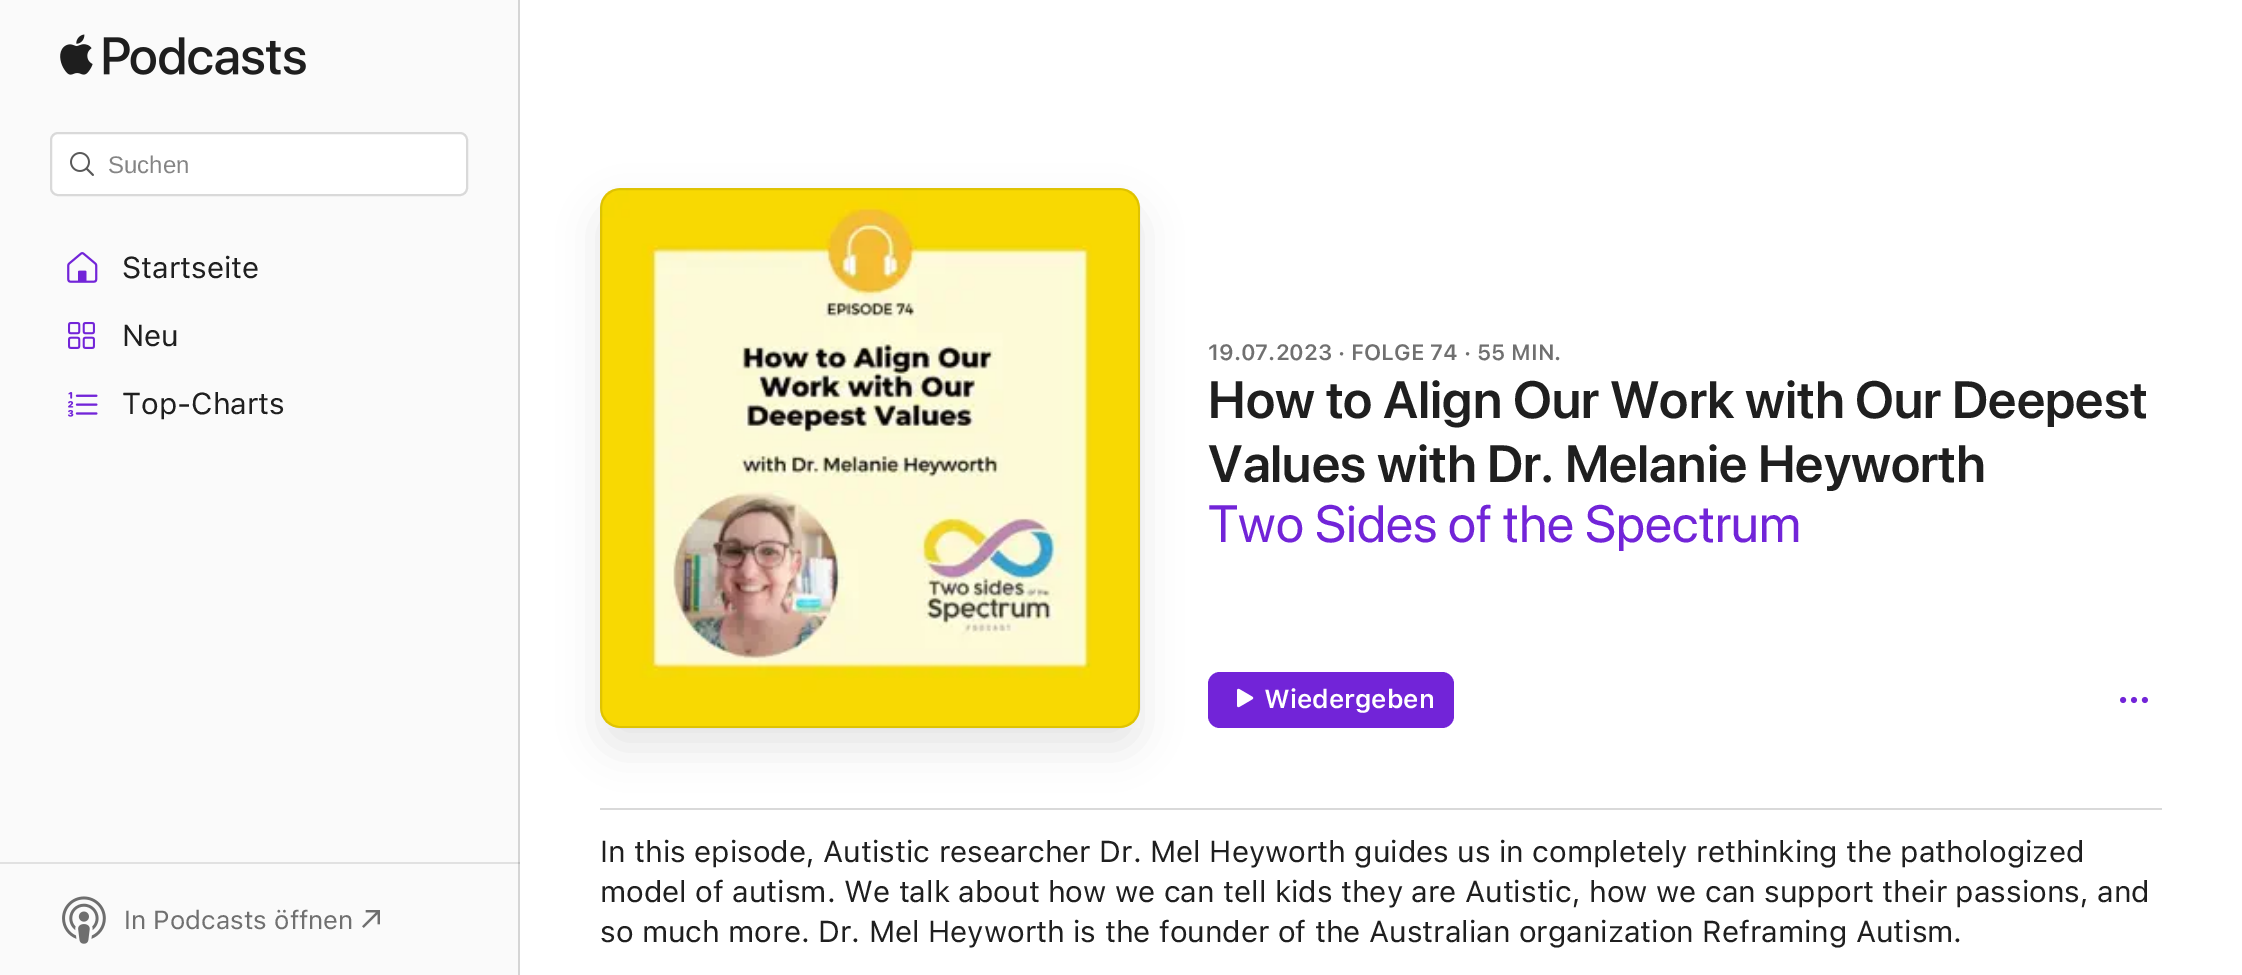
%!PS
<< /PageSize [2242 975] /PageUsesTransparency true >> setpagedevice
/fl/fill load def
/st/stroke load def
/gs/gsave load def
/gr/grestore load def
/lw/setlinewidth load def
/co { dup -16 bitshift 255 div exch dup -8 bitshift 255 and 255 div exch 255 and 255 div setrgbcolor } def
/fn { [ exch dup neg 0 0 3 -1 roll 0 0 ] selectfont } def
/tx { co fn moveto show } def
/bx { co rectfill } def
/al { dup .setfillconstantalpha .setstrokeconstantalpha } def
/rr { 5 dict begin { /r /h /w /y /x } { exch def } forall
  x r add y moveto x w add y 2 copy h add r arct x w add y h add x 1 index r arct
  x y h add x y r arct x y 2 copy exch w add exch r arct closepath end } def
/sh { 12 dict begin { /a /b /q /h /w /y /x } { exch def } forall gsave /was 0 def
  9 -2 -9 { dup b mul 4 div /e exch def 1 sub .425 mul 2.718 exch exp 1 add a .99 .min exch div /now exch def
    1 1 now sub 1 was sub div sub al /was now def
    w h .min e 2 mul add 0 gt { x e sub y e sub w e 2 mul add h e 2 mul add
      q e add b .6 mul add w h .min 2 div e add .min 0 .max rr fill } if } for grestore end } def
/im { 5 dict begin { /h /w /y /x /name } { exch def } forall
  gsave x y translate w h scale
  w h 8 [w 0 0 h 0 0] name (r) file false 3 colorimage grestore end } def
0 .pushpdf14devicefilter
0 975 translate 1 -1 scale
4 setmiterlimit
0 0 2242 975 16#FFFFFF bx
0 0 518 975 16#FAFAFA bx
0 862 520 2 16#E1E1E1 bx
518 0 2 975 16#D5D5D5 bx
518 862 2 2 16#C0C0C0 bx
(media/1.raw) 60 34 246 41 im
16#FFFFFF co
51 133 416 62 7 rr gs fl gr
16#D9D9D9 co
2 lw
st
(media/2.raw) 70 152 24 24 im
(media/3.raw) 67 252 31 31 im
(media/4.raw) 68 322 27 27 im
(media/5.raw) 68 392 30 25 im
(media/6.raw) 62 896 44 48 im
(media/7.raw) 362 910 18 18 im
600 808 1562 2 16#D9D9D9 bx
16#000000 co
600 208 540 540 20 20 .1 sh
(media/8.raw) 600 188 540 540 im
0.1 al
601 189 538 538 19 rr st
1 al
16#7224D8 co
1208 672 246 56 12 rr fl
(media/9.raw) 1237 688 17 20 im
(media/10.raw) 2120 696 28 8 im
(Suchen) 108 173 /LiberationSans-Regular 24 16#858585 tx
(Startseite) 122 278 /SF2-Regular 30 16#1F1F1F tx
(Neu) 122 346 /SF2-Regular 30 16#1F1F1F tx
(Top-Charts) 122 414 /SF2-Regular 30 16#1F1F1F tx
(In Podcasts öffnen) 124 929 /SF2-Regular 26 16#707070 tx
(19.07.2023 · FOLGE 74 · 55 MIN.) 1208 360 /SF-SemiBold 22 16#707070 tx
(How to Align Our Work with Our Deepest) 1208 418 /SF2-SemiBold 52 16#1F1F1F tx
(Values with Dr. Melanie Heyworth) 1208 482 /SF2-SemiBold 52 16#1F1F1F tx
(Two Sides of the Spectrum) 1208 542 /SF-Regular 52 16#7224D8 tx
(Wiedergeben) 1264 708 /SF-SemiBold 26 16#FFFFFF tx
(In this episode, Autistic researcher Dr. Mel Heyworth guides us in completely rethinking the pathologized) 600 862 /SF2-Regular 30 16#1F1F1F tx
(model of autism. We talk about how we can tell kids they are Autistic, how we can support their passions, and) 600 902 /SF2-Regular 30 16#1F1F1F tx
(so much more. Dr. Mel Heyworth is the founder of the Australian organization Reframing Autism.) 600 942 /SF2-Regular 30 16#1F1F1F tx
.poppdf14devicefilter showpage
